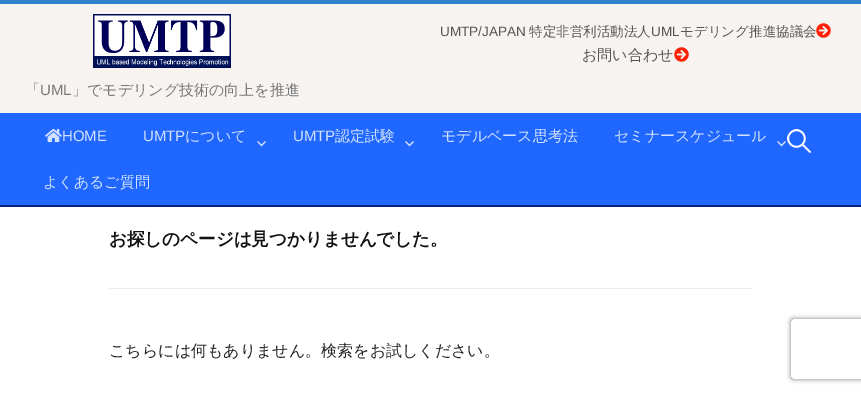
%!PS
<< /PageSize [861 393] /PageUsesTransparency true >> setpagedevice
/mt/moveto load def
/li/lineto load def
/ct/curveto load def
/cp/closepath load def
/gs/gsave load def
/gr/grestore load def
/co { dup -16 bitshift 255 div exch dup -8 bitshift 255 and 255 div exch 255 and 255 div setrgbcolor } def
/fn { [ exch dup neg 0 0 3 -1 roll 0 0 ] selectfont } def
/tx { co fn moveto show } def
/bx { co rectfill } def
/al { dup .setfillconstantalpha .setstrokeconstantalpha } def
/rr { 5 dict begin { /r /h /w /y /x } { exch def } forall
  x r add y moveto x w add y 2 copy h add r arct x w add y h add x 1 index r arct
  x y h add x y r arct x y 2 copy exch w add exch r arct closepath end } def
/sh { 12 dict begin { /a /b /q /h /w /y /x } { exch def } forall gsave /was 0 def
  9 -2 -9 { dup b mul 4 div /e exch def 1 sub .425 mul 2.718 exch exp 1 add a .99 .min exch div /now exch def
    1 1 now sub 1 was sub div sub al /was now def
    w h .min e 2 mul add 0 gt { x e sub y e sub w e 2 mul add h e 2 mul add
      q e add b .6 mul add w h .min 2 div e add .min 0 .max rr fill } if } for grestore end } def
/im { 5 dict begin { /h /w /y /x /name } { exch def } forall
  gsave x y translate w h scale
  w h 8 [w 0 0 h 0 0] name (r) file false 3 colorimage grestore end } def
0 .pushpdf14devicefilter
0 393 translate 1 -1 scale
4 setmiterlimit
0 0 861 393 16#FFFFFF bx
0 4 861 109 16#F6F3F1 bx
0 0 861 4 16#2D80CA bx
(media/1.raw) 816 23 15 15 im
(media/1.raw) 674 47 15 15 im
(media/2.raw) 93 14 138 54 im
0 113 861 92 16#2067FF bx
0 205 861 2 16#06227F bx
(media/3.raw) 45 128 17 15 im
(media/4.raw) 257 141 9 6 im
(media/4.raw) 405 141 9 6 im
(media/4.raw) 777 141 9 6 im
(media/5.raw) 787 129 24 24 im
109 288 644 1 16#EEEEEE bx
gs
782 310 mt 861 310 li 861 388 li 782 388 li cp 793 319 mt 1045 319 li 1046 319 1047 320 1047 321 ct 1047 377 li 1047 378 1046 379 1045 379 ct 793 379 li 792 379 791 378 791 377 ct 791 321 li 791 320 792 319 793 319 ct cp eoclip newpath
16#808080 co
791 319 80 60 2 2.5 1 sh
gr
(UMTP/JAPAN) 440 36 /LiberationSans-Regular 13.5 16#555555 tx
(特定非営利活動法人) 529 36 /WenQuanYiZenHei-Medium 13.5 16#555555 tx
(UML) 651 36 /LiberationSans-Regular 13.5 16#555555 tx
(モデリング推進協議会) 680 36 /WenQuanYiZenHei-Medium 13.5 16#555555 tx
(お問い合わせ) 582 60 /WenQuanYiZenHei-Medium 15 16#555555 tx
(「) 25 95 /WenQuanYiZenHei-Medium 15 16#777777 tx
(UML) 40 95 /LiberationSans-Regular 15 16#777777 tx
(」でモデリング技術の向上を推進) 72 95 /WenQuanYiZenHei-Medium 15 16#777777 tx
(HOME) 62 141 /LiberationSans-Regular 15 16#D2E1FF tx
(UMTP) 143 141 /LiberationSans-Regular 15 16#D2E1FF tx
(について) 185 141 /WenQuanYiZenHei-Medium 15 16#D2E1FF tx
(UMTP) 293 141 /LiberationSans-Regular 15 16#D2E1FF tx
(認定試験) 335 141 /WenQuanYiZenHei-Medium 15 16#D2E1FF tx
(モデルベース思考法) 441 141 /WenQuanYiZenHei-Medium 15 16#D2E1FF tx
(セミナースケジュール) 614 141 /WenQuanYiZenHei-Medium 15 16#D2E1FF tx
(よくあるご質問) 43 187 /WenQuanYiZenHei-Medium 15 16#D2E1FF tx
/WenQuanYiZenHei-Bold 17.7 fn
16#111111 co
109 245 mt -.2 0 (お探しのページは見つかりませんでした。) ashow
(こちらには何もありません。検索をお試しください。) 109 356 /WenQuanYiZenHei-Medium 16 16#222222 tx
.poppdf14devicefilter showpage
